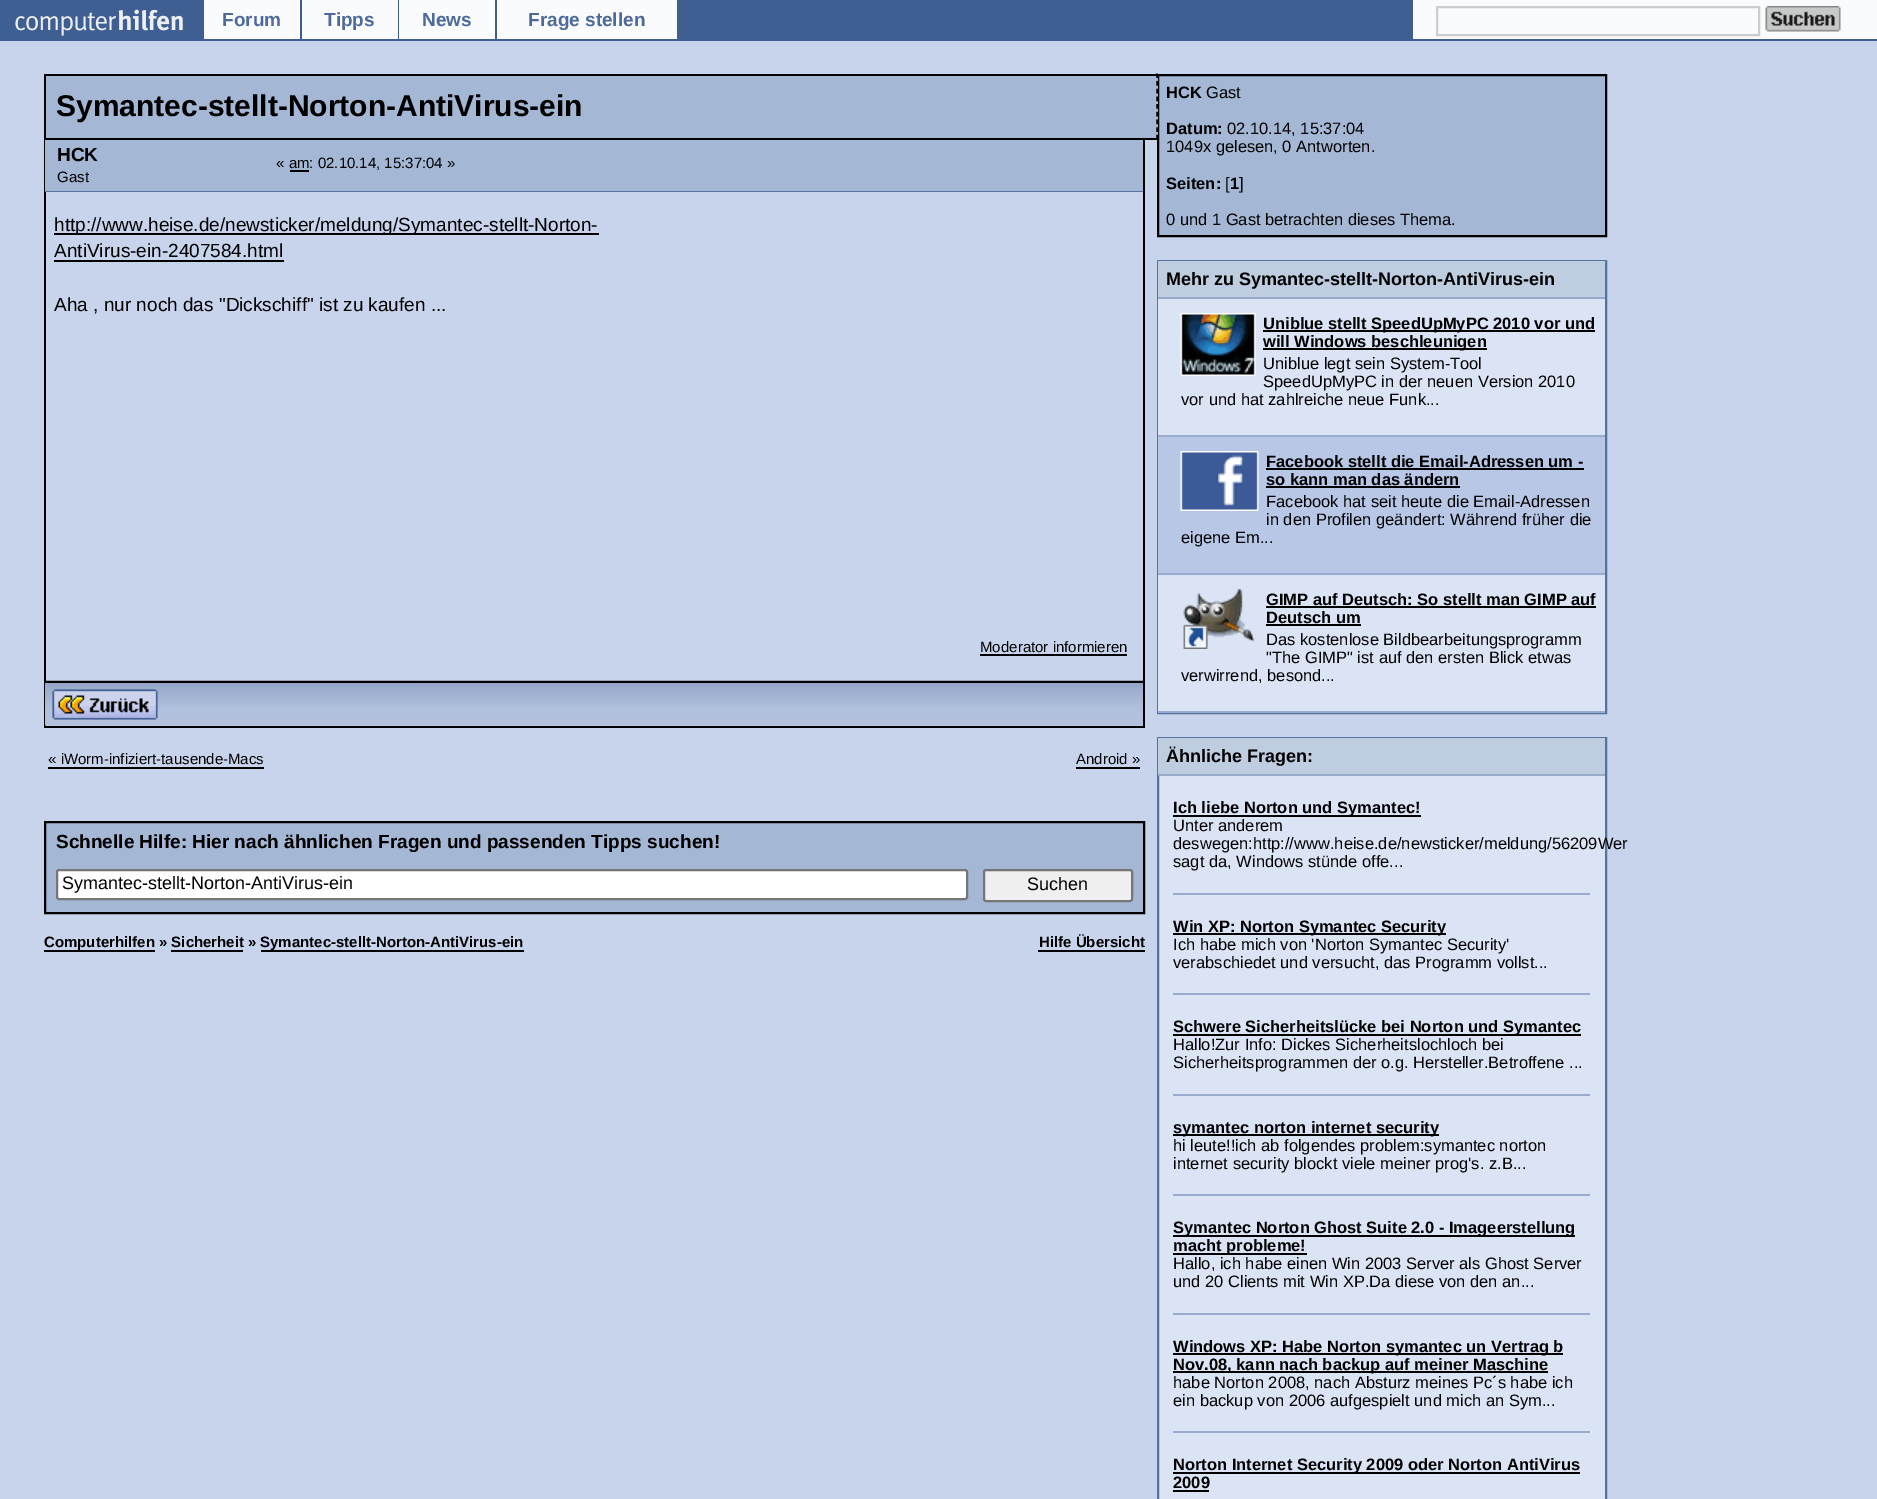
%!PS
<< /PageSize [1877 1499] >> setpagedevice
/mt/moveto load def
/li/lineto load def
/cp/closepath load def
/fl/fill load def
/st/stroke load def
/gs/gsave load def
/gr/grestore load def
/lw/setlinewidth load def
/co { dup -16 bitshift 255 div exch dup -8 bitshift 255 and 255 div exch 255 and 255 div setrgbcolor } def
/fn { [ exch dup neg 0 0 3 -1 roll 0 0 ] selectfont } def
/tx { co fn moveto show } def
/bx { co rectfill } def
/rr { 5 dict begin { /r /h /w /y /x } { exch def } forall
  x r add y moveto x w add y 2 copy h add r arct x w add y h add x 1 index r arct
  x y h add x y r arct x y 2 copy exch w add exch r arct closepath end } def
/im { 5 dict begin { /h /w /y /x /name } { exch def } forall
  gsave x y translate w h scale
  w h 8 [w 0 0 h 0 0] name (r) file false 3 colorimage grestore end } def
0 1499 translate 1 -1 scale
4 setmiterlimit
0 0 1877 1499 16#C7D4EC bx
0 0 1877 41 16#3F5E91 bx
(media/1.raw) 15 9 168 27 im
204 0 96 39 16#F9FBFD bx
302 0 96 39 16#F9FBFD bx
399 0 96 39 16#F9FBFD bx
497 0 180 39 16#F9FBFD bx
1413 0 464 39 16#F9FBFD bx
16#CCCDCF co
2 lw
1437 7 322 28 rectstroke
(media/2.raw) 1765 6 76 26 im
16#A4B8D6 co
1158 75 mt 1606 75 li 1606 236 li 1158 236 li cp gs fl gr
16#000000 co
st
46 76 1112 62 16#A4B8D6 bx
44 74 1114 2 16#000000 bx
1.5 lw
[4.5 3.18] 0 setdash
1157 73.5 mt 1157 139.5 li st
44 138 1114 2 16#000000 bx
44 74 2 66 16#000000 bx
1143 140 2 588 16#000000 bx
44 726 1101 2 16#000000 bx
44 140 2 588 16#000000 bx
45 140 1098 51 16#A4B8D6 bx
45 191 1098 1 16#5672A0 bx
290 170 19 2 16#000000 bx
54 233 545 2 16#000000 bx
54 260 230 2 16#000000 bx
980 654 147 2 16#000000 bx
(media/3.raw) 45 680 1098 46 im
45 681 1098 2 16#000000 bx
(media/4.raw) 52 689 106 31 im
48 767 216 2 16#000000 bx
1076 767 64 2 16#000000 bx
16#A4B8D6 co
45 822 mt 1144 822 li 1144 913 li 45 913 li cp gs fl gr
16#000000 co
2 lw
[] 0 setdash
st
16#FFFFFF co
57 870 910 29 2 rr gs fl gr
16#767676 co
st
16#EFEFEF co
984 870 148 31 2 rr gs fl gr
16#767676 co
st
44 950 111 2 16#000000 bx
261 950 263 2 16#000000 bx
171 950 72 2 16#000000 bx
1038 950 107 2 16#000000 bx
16#5672A0 co
1158 261 448 452 rectstroke
1158 261 447 36 16#BFCDE1 bx
1158 297 447 2 16#98ABC9 bx
1158 299 447 136 16#DAE4F5 bx
1158 435 447 2 16#99ACD0 bx
(media/5.raw) 1180 313 76 63 im
1263 330 332 2 16#000000 bx
1263 348 224 2 16#000000 bx
1158 437 447 136 16#B9C7E6 bx
1158 573 447 2 16#99ACD0 bx
(media/6.raw) 1180 451 79 60 im
1266 468 318 2 16#000000 bx
1266 486 194 2 16#000000 bx
1158 575 447 136 16#DAE4F5 bx
1158 711 447 2 16#99ACD0 bx
(media/7.raw) 1183 589 72 60 im
1266 606 330 2 16#000000 bx
1266 624 95 2 16#000000 bx
1159 776 446 723 16#DAE4F5 bx
16#5672A0 co
1158 738 448 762 rectstroke
1158 738 447 36 16#BFCDE1 bx
1158 774 447 2 16#98ABC9 bx
1173 893 417 2 16#99ACD0 bx
1173 815 248 2 16#000000 bx
1173 993 417 2 16#99ACD0 bx
1173 933 273 2 16#000000 bx
1173 1094 417 2 16#99ACD0 bx
1173 1034 408 2 16#000000 bx
1173 1194 417 2 16#99ACD0 bx
1173 1134 266 2 16#000000 bx
1173 1313 417 2 16#99ACD0 bx
1173 1235 402 2 16#000000 bx
1173 1253 134 2 16#000000 bx
1173 1431 417 2 16#99ACD0 bx
1173 1353 390 2 16#000000 bx
1173 1371 375 2 16#000000 bx
1173 1472 407 2 16#000000 bx
1173 1490 36 2 16#000000 bx
(Forum) 222 26 /LiberationSans-Bold 19 16#4D6A9A tx
(Tipps) 324 26 /LiberationSans-Bold 19 16#4D6A9A tx
(News) 422 26 /LiberationSans-Bold 19 16#4D6A9A tx
(Frage stellen) 528 26 /LiberationSans-Bold 19 16#4D6A9A tx
(Symantec-stellt-Norton-AntiVirus-ein) 56 116 /LiberationSans-Bold 30 16#000000 tx
(HCK) 57 161 /LiberationSans-Bold 19 16#000000 tx
(Gast) 57 182 /LiberationSans-Regular 15 16#000000 tx
(« am: 02.10.14, 15:37:04 ») 276 168 /LiberationSans-Regular 15 16#000000 tx
(http://www.heise.de/newsticker/meldung/Symantec-stellt-Norton-) 54 231 /LiberationSans-Regular 19 16#000000 tx
(AntiVirus-ein-2407584.html) 54 257 /LiberationSans-Regular 19 16#000000 tx
(Aha , nur noch das "Dickschiff" ist zu kaufen ...) 54 311 /LiberationSans-Regular 19 16#000000 tx
(Moderator informieren) 980 652 /LiberationSans-Regular 15 16#000000 tx
(« iWorm-infiziert-tausende-Macs) 48 764 /LiberationSans-Regular 15 16#000000 tx
(Android ») 1076 764 /LiberationSans-Regular 15 16#000000 tx
(Schnelle Hilfe: Hier nach ähnlichen Fragen und passenden Tipps suchen!) 56 848 /LiberationSans-Bold 19 16#000000 tx
(Symantec-stellt-Norton-AntiVirus-ein) 62 889 /LiberationSans-Regular 18 16#000000 tx
(Suchen) 1027 890 /LiberationSans-Regular 18 16#000000 tx
(Computerhilfen » Sicherheit ») 44 947 /LiberationSans-Bold 15 16#000000 tx
(Symantec-stellt-Norton-AntiVirus-ein) 260 947 /LiberationSans-Bold 15 16#000000 tx
(Hilfe Übersicht) 1039 947 /LiberationSans-Bold 15 16#000000 tx
(HCK) 1166 98 /LiberationSans-Bold 16.5 16#000000 tx
(Gast) 1206 98 /LiberationSans-Regular 16.5 16#000000 tx
(Datum:) 1166 134 /LiberationSans-Bold 16.5 16#000000 tx
(02.10.14, 15:37:04) 1227 134 /LiberationSans-Regular 16.5 16#000000 tx
(1049x gelesen, 0 Antworten.) 1166 152 /LiberationSans-Regular 16.5 16#000000 tx
(Seiten:) 1166 189 /LiberationSans-Bold 16.5 16#000000 tx
([) 1225 189 /LiberationSans-Regular 16.5 16#000000 tx
(1) 1230 189 /LiberationSans-Bold 16.5 16#000000 tx
(]) 1239 189 /LiberationSans-Regular 16.5 16#000000 tx
(0 und 1 Gast betrachten dieses Thema.) 1166 225 /LiberationSans-Regular 16.5 16#000000 tx
(Mehr zu Symantec-stellt-Norton-AntiVirus-ein) 1166 285 /LiberationSans-Bold 18 16#000000 tx
(Uniblue stellt SpeedUpMyPC 2010 vor und) 1263 329 /LiberationSans-Bold 16.5 16#000000 tx
(will Windows beschleunigen) 1263 347 /LiberationSans-Bold 16.5 16#000000 tx
(Uniblue legt sein System-Tool) 1263 369 /LiberationSans-Regular 16.5 16#000000 tx
(SpeedUpMyPC in der neuen Version 2010) 1263 387 /LiberationSans-Regular 16.5 16#000000 tx
(vor und hat zahlreiche neue Funk...) 1181 405 /LiberationSans-Regular 16.5 16#000000 tx
(Facebook stellt die Email-Adressen um -) 1266 467 /LiberationSans-Bold 16.5 16#000000 tx
(so kann man das ändern) 1266 485 /LiberationSans-Bold 16.5 16#000000 tx
(Facebook hat seit heute die Email-Adressen) 1266 507 /LiberationSans-Regular 16.5 16#000000 tx
(in den Profilen geändert: Während früher die) 1266 525 /LiberationSans-Regular 16.5 16#000000 tx
(eigene Em...) 1181 543 /LiberationSans-Regular 16.5 16#000000 tx
(GIMP auf Deutsch: So stellt man GIMP auf) 1266 605 /LiberationSans-Bold 16.5 16#000000 tx
(Deutsch um) 1266 623 /LiberationSans-Bold 16.5 16#000000 tx
(Das kostenlose Bildbearbeitungsprogramm) 1266 645 /LiberationSans-Regular 16.5 16#000000 tx
("The GIMP" ist auf den ersten Blick etwas) 1266 663 /LiberationSans-Regular 16.5 16#000000 tx
(verwirrend, besond...) 1181 681 /LiberationSans-Regular 16.5 16#000000 tx
(Ähnliche Fragen:) 1166 762 /LiberationSans-Bold 18 16#000000 tx
(Ich liebe Norton und Symantec!) 1173 813 /LiberationSans-Bold 16.5 16#000000 tx
(Unter anderem) 1173 831 /LiberationSans-Regular 16.5 16#000000 tx
(deswegen:http://www.heise.de/newsticker/meldung/56209Wer) 1173 849 /LiberationSans-Regular 16.5 16#000000 tx
(sagt da, Windows stünde offe...) 1173 867 /LiberationSans-Regular 16.5 16#000000 tx
(Win XP: Norton Symantec Security) 1173 932 /LiberationSans-Bold 16.5 16#000000 tx
(Ich habe mich von 'Norton Symantec Security') 1173 950 /LiberationSans-Regular 16.5 16#000000 tx
(verabschiedet und versucht, das Programm vollst...) 1173 968 /LiberationSans-Regular 16.5 16#000000 tx
(Schwere Sicherheitslücke bei Norton und Symantec) 1173 1032 /LiberationSans-Bold 16.5 16#000000 tx
(Hallo!Zur Info: Dickes Sicherheitslochloch bei) 1173 1050 /LiberationSans-Regular 16.5 16#000000 tx
(Sicherheitsprogrammen der o.g. Hersteller.Betroffene ...) 1173 1068 /LiberationSans-Regular 16.5 16#000000 tx
(symantec norton internet security) 1173 1133 /LiberationSans-Bold 16.5 16#000000 tx
(hi leute!!ich ab folgendes problem:symantec norton) 1173 1151 /LiberationSans-Regular 16.5 16#000000 tx
(internet security blockt viele meiner prog's. z.B...) 1173 1169 /LiberationSans-Regular 16.5 16#000000 tx
(Symantec Norton Ghost Suite 2.0 - Imageerstellung) 1173 1233 /LiberationSans-Bold 16.5 16#000000 tx
(macht probleme!) 1173 1251 /LiberationSans-Bold 16.5 16#000000 tx
(Hallo, ich habe einen Win 2003 Server als Ghost Server) 1173 1269 /LiberationSans-Regular 16.5 16#000000 tx
(und 20 Clients mit Win XP.Da diese von den an...) 1173 1287 /LiberationSans-Regular 16.5 16#000000 tx
(Windows XP: Habe Norton symantec un Vertrag b) 1173 1352 /LiberationSans-Bold 16.5 16#000000 tx
(Nov.08, kann nach backup auf meiner Maschine) 1173 1370 /LiberationSans-Bold 16.5 16#000000 tx
(habe Norton 2008, nach Absturz meines Pc´s habe ich) 1173 1388 /LiberationSans-Regular 16.5 16#000000 tx
(ein backup von 2006 aufgespielt und mich an Sym...) 1173 1406 /LiberationSans-Regular 16.5 16#000000 tx
(Norton Internet Security 2009 oder Norton AntiVirus) 1173 1470 /LiberationSans-Bold 16.5 16#000000 tx
(2009) 1173 1488 /LiberationSans-Bold 16.5 16#000000 tx
showpage
